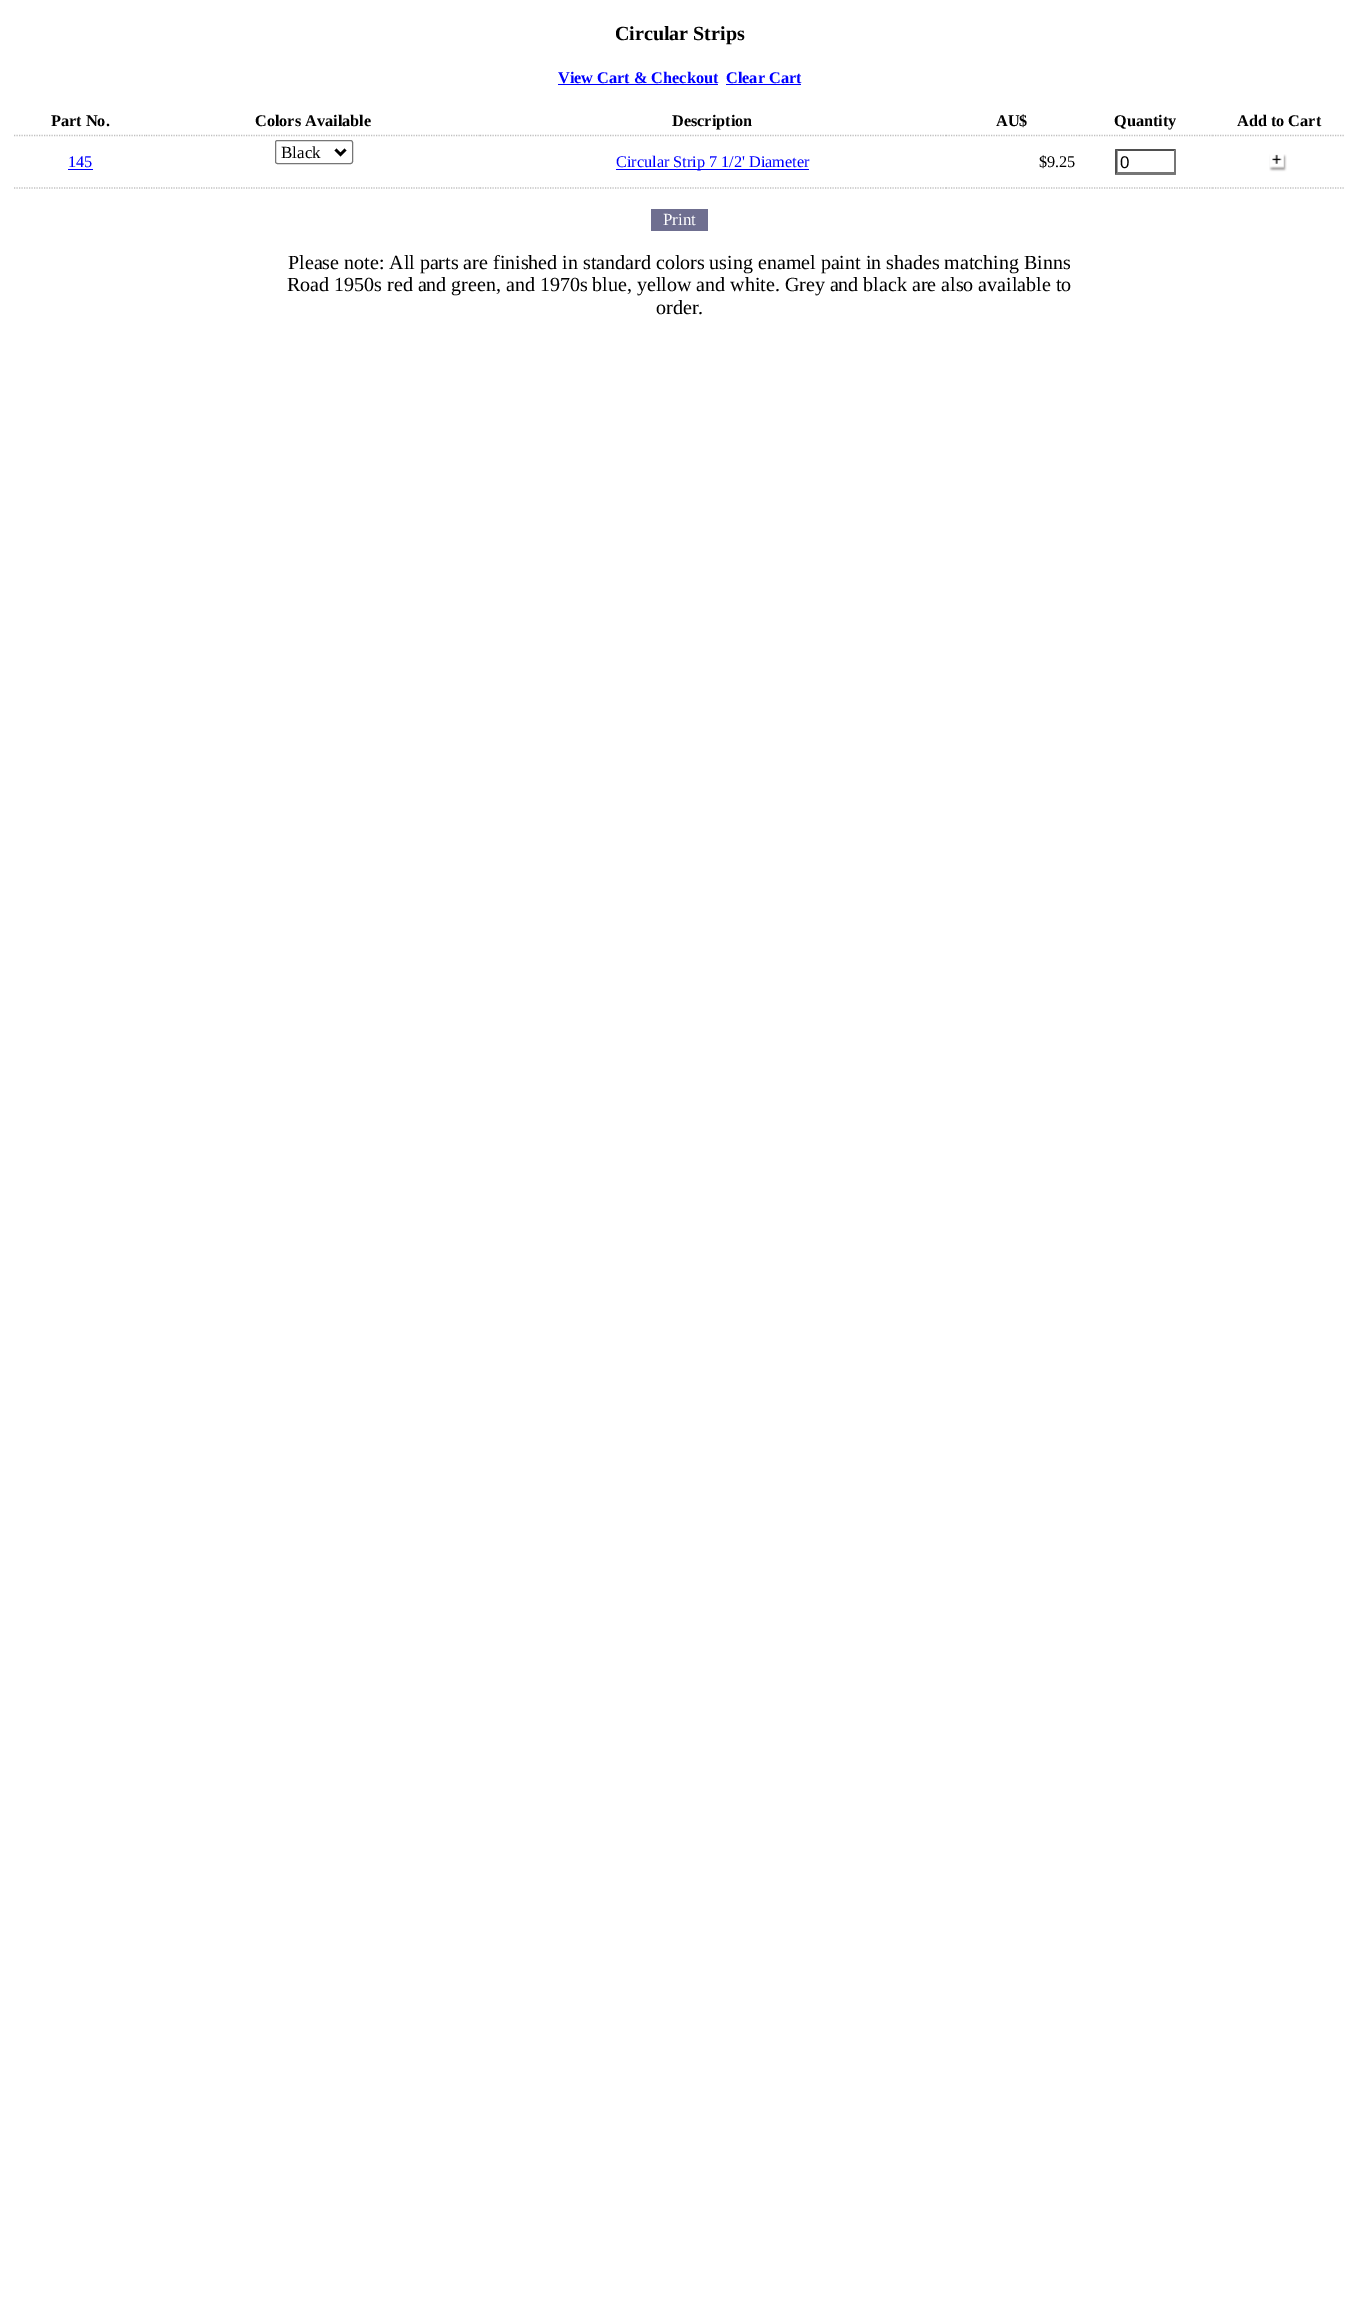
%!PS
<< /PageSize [1358 2307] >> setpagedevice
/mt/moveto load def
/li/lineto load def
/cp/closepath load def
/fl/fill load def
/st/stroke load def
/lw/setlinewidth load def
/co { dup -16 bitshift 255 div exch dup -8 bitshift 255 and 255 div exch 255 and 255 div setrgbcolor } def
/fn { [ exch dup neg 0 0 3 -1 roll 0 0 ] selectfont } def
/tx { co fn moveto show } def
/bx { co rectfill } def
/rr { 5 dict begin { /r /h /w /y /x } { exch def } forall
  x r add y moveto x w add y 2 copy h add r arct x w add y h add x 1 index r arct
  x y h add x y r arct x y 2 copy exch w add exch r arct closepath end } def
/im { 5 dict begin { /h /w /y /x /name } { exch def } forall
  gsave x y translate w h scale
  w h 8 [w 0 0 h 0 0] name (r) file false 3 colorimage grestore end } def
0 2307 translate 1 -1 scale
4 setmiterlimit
0 0 1358 2307 16#FFFFFF bx
558 84 160 1 16#0000FF bx
726 84 75 1 16#0000FF bx
16#C0C0C0 co
1.2 lw
[1.25 1.25] 0 setdash
14 135.5 mt 146 135.5 li st
146 135.5 mt 480 135.5 li st
480 135.5 mt 946 135.5 li st
946 135.5 mt 1079 135.5 li st
1079 135.5 mt 1212.5 135.5 li st
1212.5 135.5 mt 1345 135.5 li st
146 188 mt 480 188 li st
16#767676 co
1 lw
[] 0 setdash
275.5 140.5 77 23 2 rr st
16#000000 co
2.5 lw
335.5 149.5 mt 340.5 154.5 li 345.5 149.5 li st
16#C0C0C0 co
1.2 lw
[1.25 1.25] 0 setdash
14 188 mt 146 188 li st
68 169 25 1 16#0000FF bx
16#C0C0C0 co
480 188 mt 946 188 li st
616 169 193 1 16#0000FF bx
16#C0C0C0 co
946 188 mt 1079 188 li st
1079 188 mt 1212.5 188 li st
16#4F4F4F co
1115 149 mt 1176 149 li 1174 151 li 1118 151 li cp fl
16#767676 co
1176 149 mt 1176 175 li 1174 172.5 li 1174 151 li cp fl
1176 175 mt 1115 175 li 1118 172 li 1174 172 li cp fl
16#4F4F4F co
1115 175 mt 1115 149 li 1117.5 151 li 1117.5 172.5 li cp fl
16#C0C0C0 co
1212.5 188 mt 1345 188 li st
(media/1.raw) 1269 154 18 18 im
651 209 57 22 16#6F6F90 bx
(Circular Strips) 615 40 /LiberationSerif-Bold 20 16#000000 tx
(View Cart & Checkout) 558 83 /LiberationSerif-Bold 16.25 16#0000FF tx
(Clear Cart) 726 83 /LiberationSerif-Bold 16.25 16#0000FF tx
(Part No.) 51 126 /LiberationSerif-Bold 16.25 16#000000 tx
(Colors Available) 255 126 /LiberationSerif-Bold 16.25 16#000000 tx
(Description) 672 126 /LiberationSerif-Bold 16.25 16#000000 tx
(AU$) 996 126 /LiberationSerif-Bold 16.25 16#000000 tx
(Quantity) 1114 126 /LiberationSerif-Bold 16.25 16#000000 tx
(Add to Cart) 1237 126 /LiberationSerif-Bold 16.25 16#000000 tx
(Black) 281 158 /LiberationSerif-Regular 17 16#000000 tx
(145) 68 167 /LiberationSerif-Regular 16.25 16#0000FF tx
(Circular Strip 7 1/2' Diameter) 616 167 /LiberationSerif-Regular 16.25 16#0000FF tx
($9.25) 1039 167 /LiberationSerif-Regular 16.25 16#000000 tx
(0) 1120 168 /LiberationSans-Regular 17 16#000000 tx
(Print) 663 225 /LiberationSerif-Regular 17 16#FFFFFF tx
(Please note: All parts are finished in standard colors using enamel paint in shades matching Binns) 288 269 /LiberationSerif-Regular 20 16#000000 tx
(Road 1950s red and green, and 1970s blue, yellow and white. Grey and black are also available to) 287 291 /LiberationSerif-Regular 20 16#000000 tx
(order.) 656 314 /LiberationSerif-Regular 20 16#000000 tx
showpage
